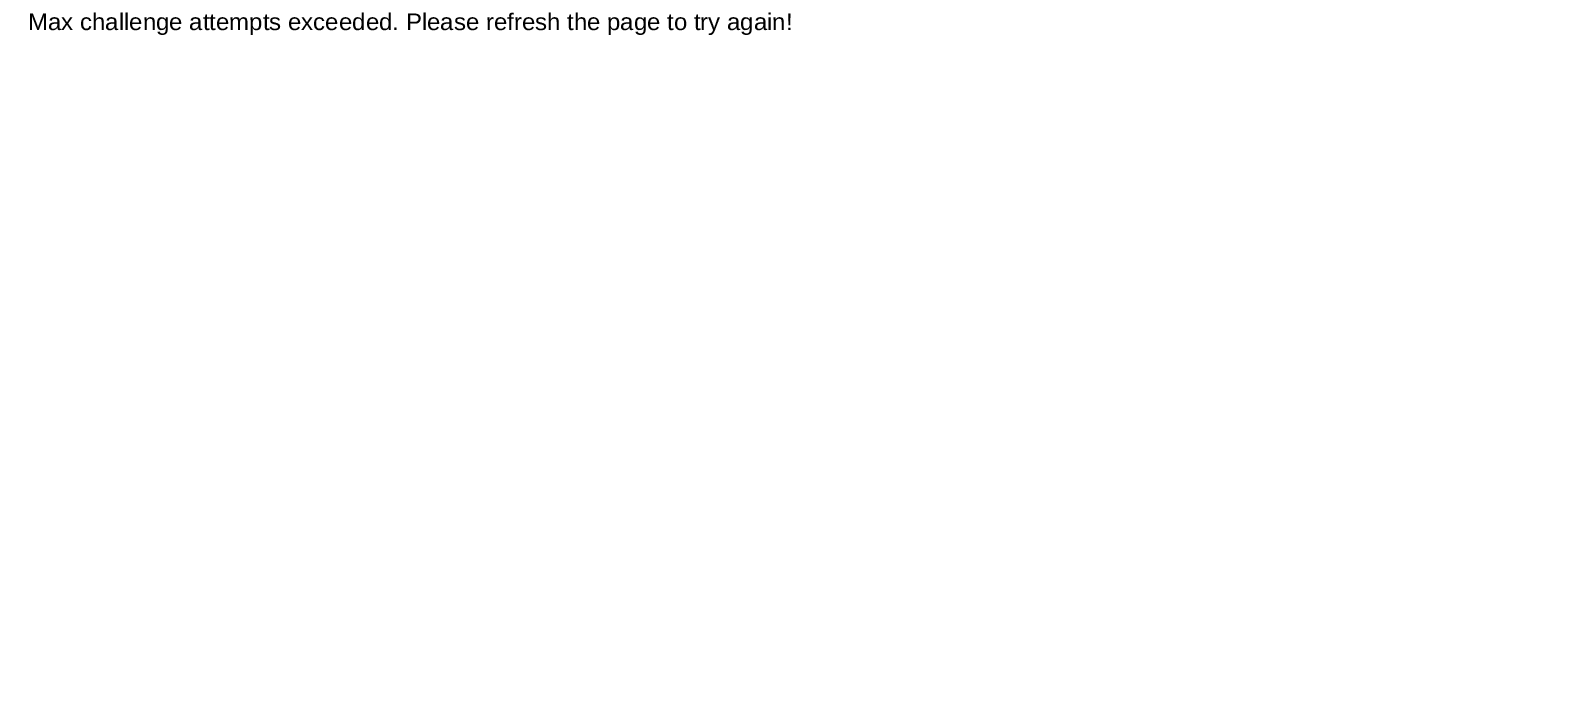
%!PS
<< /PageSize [1580 703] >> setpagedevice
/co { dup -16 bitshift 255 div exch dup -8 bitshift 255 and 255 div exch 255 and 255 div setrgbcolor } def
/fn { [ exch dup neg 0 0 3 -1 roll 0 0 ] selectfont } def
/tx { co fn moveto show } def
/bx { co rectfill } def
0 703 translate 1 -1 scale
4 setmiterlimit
0 0 1580 703 16#FFFFFF bx
(Max challenge attempts exceeded. Please refresh the page to try again!) 28 30 /LiberationSans-Regular 24 16#000000 tx
showpage
